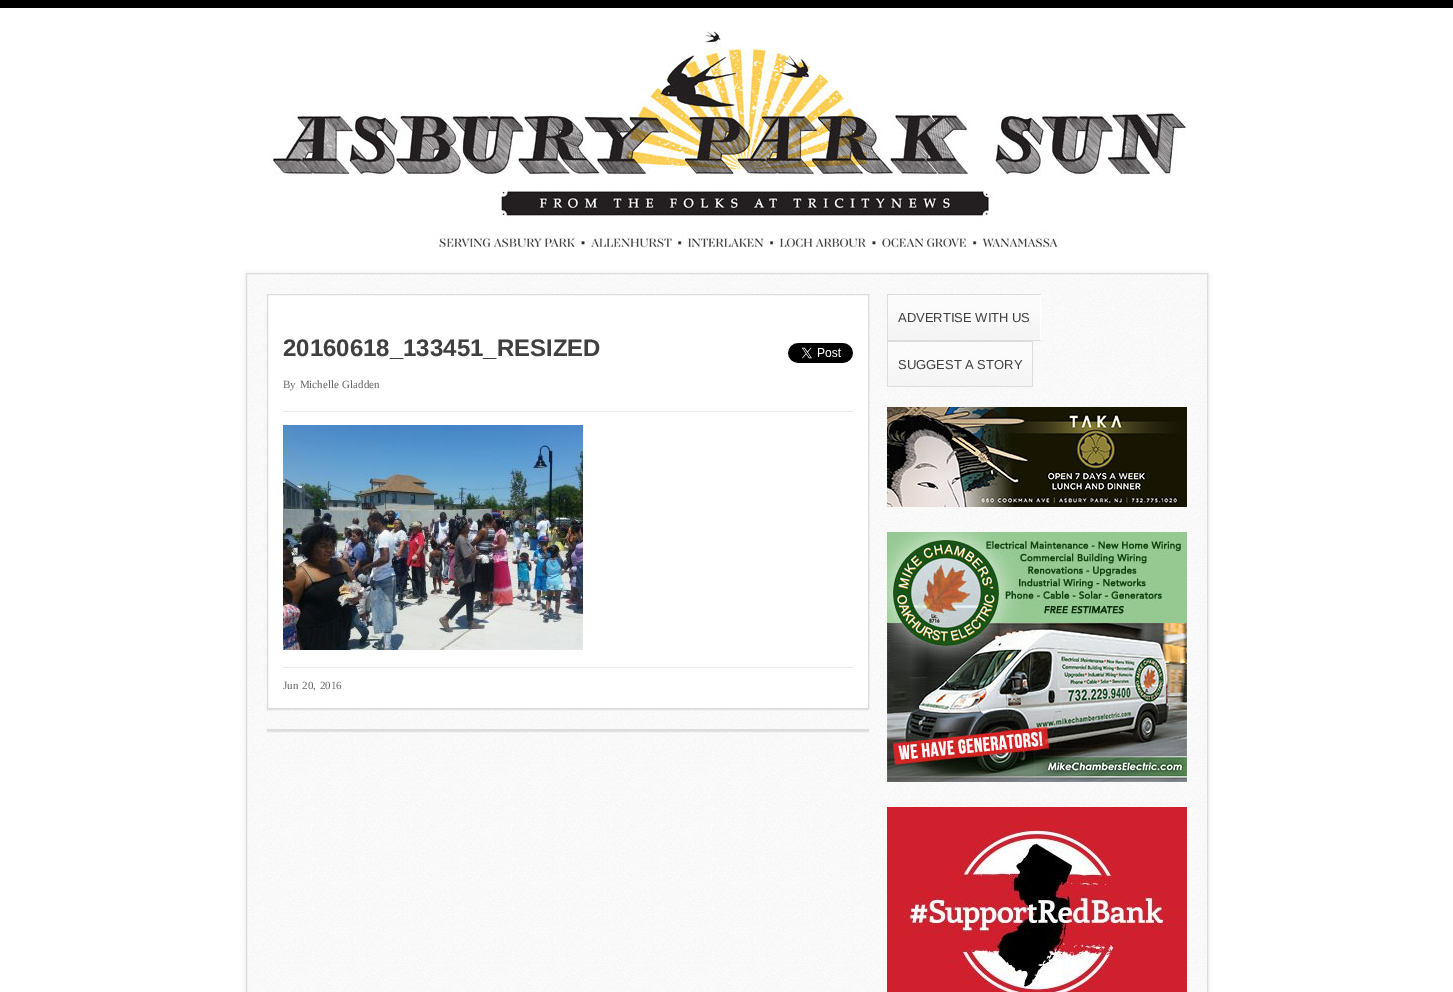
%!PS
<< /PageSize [1453 992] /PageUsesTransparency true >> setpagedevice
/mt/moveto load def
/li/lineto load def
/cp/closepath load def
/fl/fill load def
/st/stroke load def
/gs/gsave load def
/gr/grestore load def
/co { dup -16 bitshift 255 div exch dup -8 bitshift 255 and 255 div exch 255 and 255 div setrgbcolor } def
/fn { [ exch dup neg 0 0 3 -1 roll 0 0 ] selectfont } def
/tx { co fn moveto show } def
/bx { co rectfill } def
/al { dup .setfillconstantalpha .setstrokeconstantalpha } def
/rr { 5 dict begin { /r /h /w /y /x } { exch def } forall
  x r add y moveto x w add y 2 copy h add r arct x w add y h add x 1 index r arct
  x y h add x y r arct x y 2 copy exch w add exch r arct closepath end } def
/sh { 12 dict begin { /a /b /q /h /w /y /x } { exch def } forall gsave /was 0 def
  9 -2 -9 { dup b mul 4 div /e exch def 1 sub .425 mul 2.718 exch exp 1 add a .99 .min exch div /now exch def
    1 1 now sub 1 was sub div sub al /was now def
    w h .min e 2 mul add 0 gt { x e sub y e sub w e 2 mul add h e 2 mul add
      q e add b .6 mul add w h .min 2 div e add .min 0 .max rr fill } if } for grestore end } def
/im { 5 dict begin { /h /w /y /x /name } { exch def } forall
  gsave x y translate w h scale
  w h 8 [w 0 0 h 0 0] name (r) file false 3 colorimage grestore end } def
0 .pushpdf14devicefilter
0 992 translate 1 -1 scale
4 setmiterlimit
0 0 1453 992 16#FFFFFF bx
0 0 1453 8 16#000000 bx
(media/1.raw) 269 31 917 217 im
246 274 962 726 0 2.5 .1 sh
(media/2.raw) 247 274 960 718 im
16#DDDDDD co
246.5 273.5 961 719 rectstroke
16#000000 co
267 295 602 415 0 .5 .1 sh
16#FFFFFF co
267.5 294.5 mt 868.5 294.5 li 868.5 708.5 li 267.5 708.5 li cp gs fl gr
16#DDDDDD co
st
(media/3.raw) 788 343 65 20 im
283 411 570 1 16#EBEBEB bx
(media/4.raw) 283 425 300 225 im
283 667 570 1 16#EBEBEB bx
16#000000 co
267 730 602 2 0 .5 .1 sh
267 729 602 2 16#DDDDDD bx
(media/5.raw) 888 295 152 45 im
887 294 154 1 16#DDDDDD bx
887 340 154 1 16#DDDDDD bx
1040 295 1 45 16#FFFFFF bx
887 295 1 45 16#DDDDDD bx
(media/6.raw) 888 342 144 44 im
887 341 146 1 16#DDDDDD bx
887 386 146 1 16#DDDDDD bx
1032 342 1 44 16#DDDDDD bx
887 342 1 44 16#DDDDDD bx
(media/7.raw) 887 407 300 100 im
(media/8.raw) 887 532 300 250 im
(media/9.raw) 887 807 300 185 im
(20160618_133451_RESIZED) 283 356 /LiberationSans-Bold 24 16#404040 tx
/LiberationSerif-Regular 11 fn
16#666666 co
283 388 mt 1 0 32 (By Michelle Gladden) widthshow
283 689 mt 1 0 32 (Jun 20, 2016) widthshow
(ADVERTISE WITH US) 898 322 /LiberationSans-Regular 13 16#404040 tx
(SUGGEST A STORY) 898 369 /LiberationSans-Regular 13 16#404040 tx
.poppdf14devicefilter showpage
